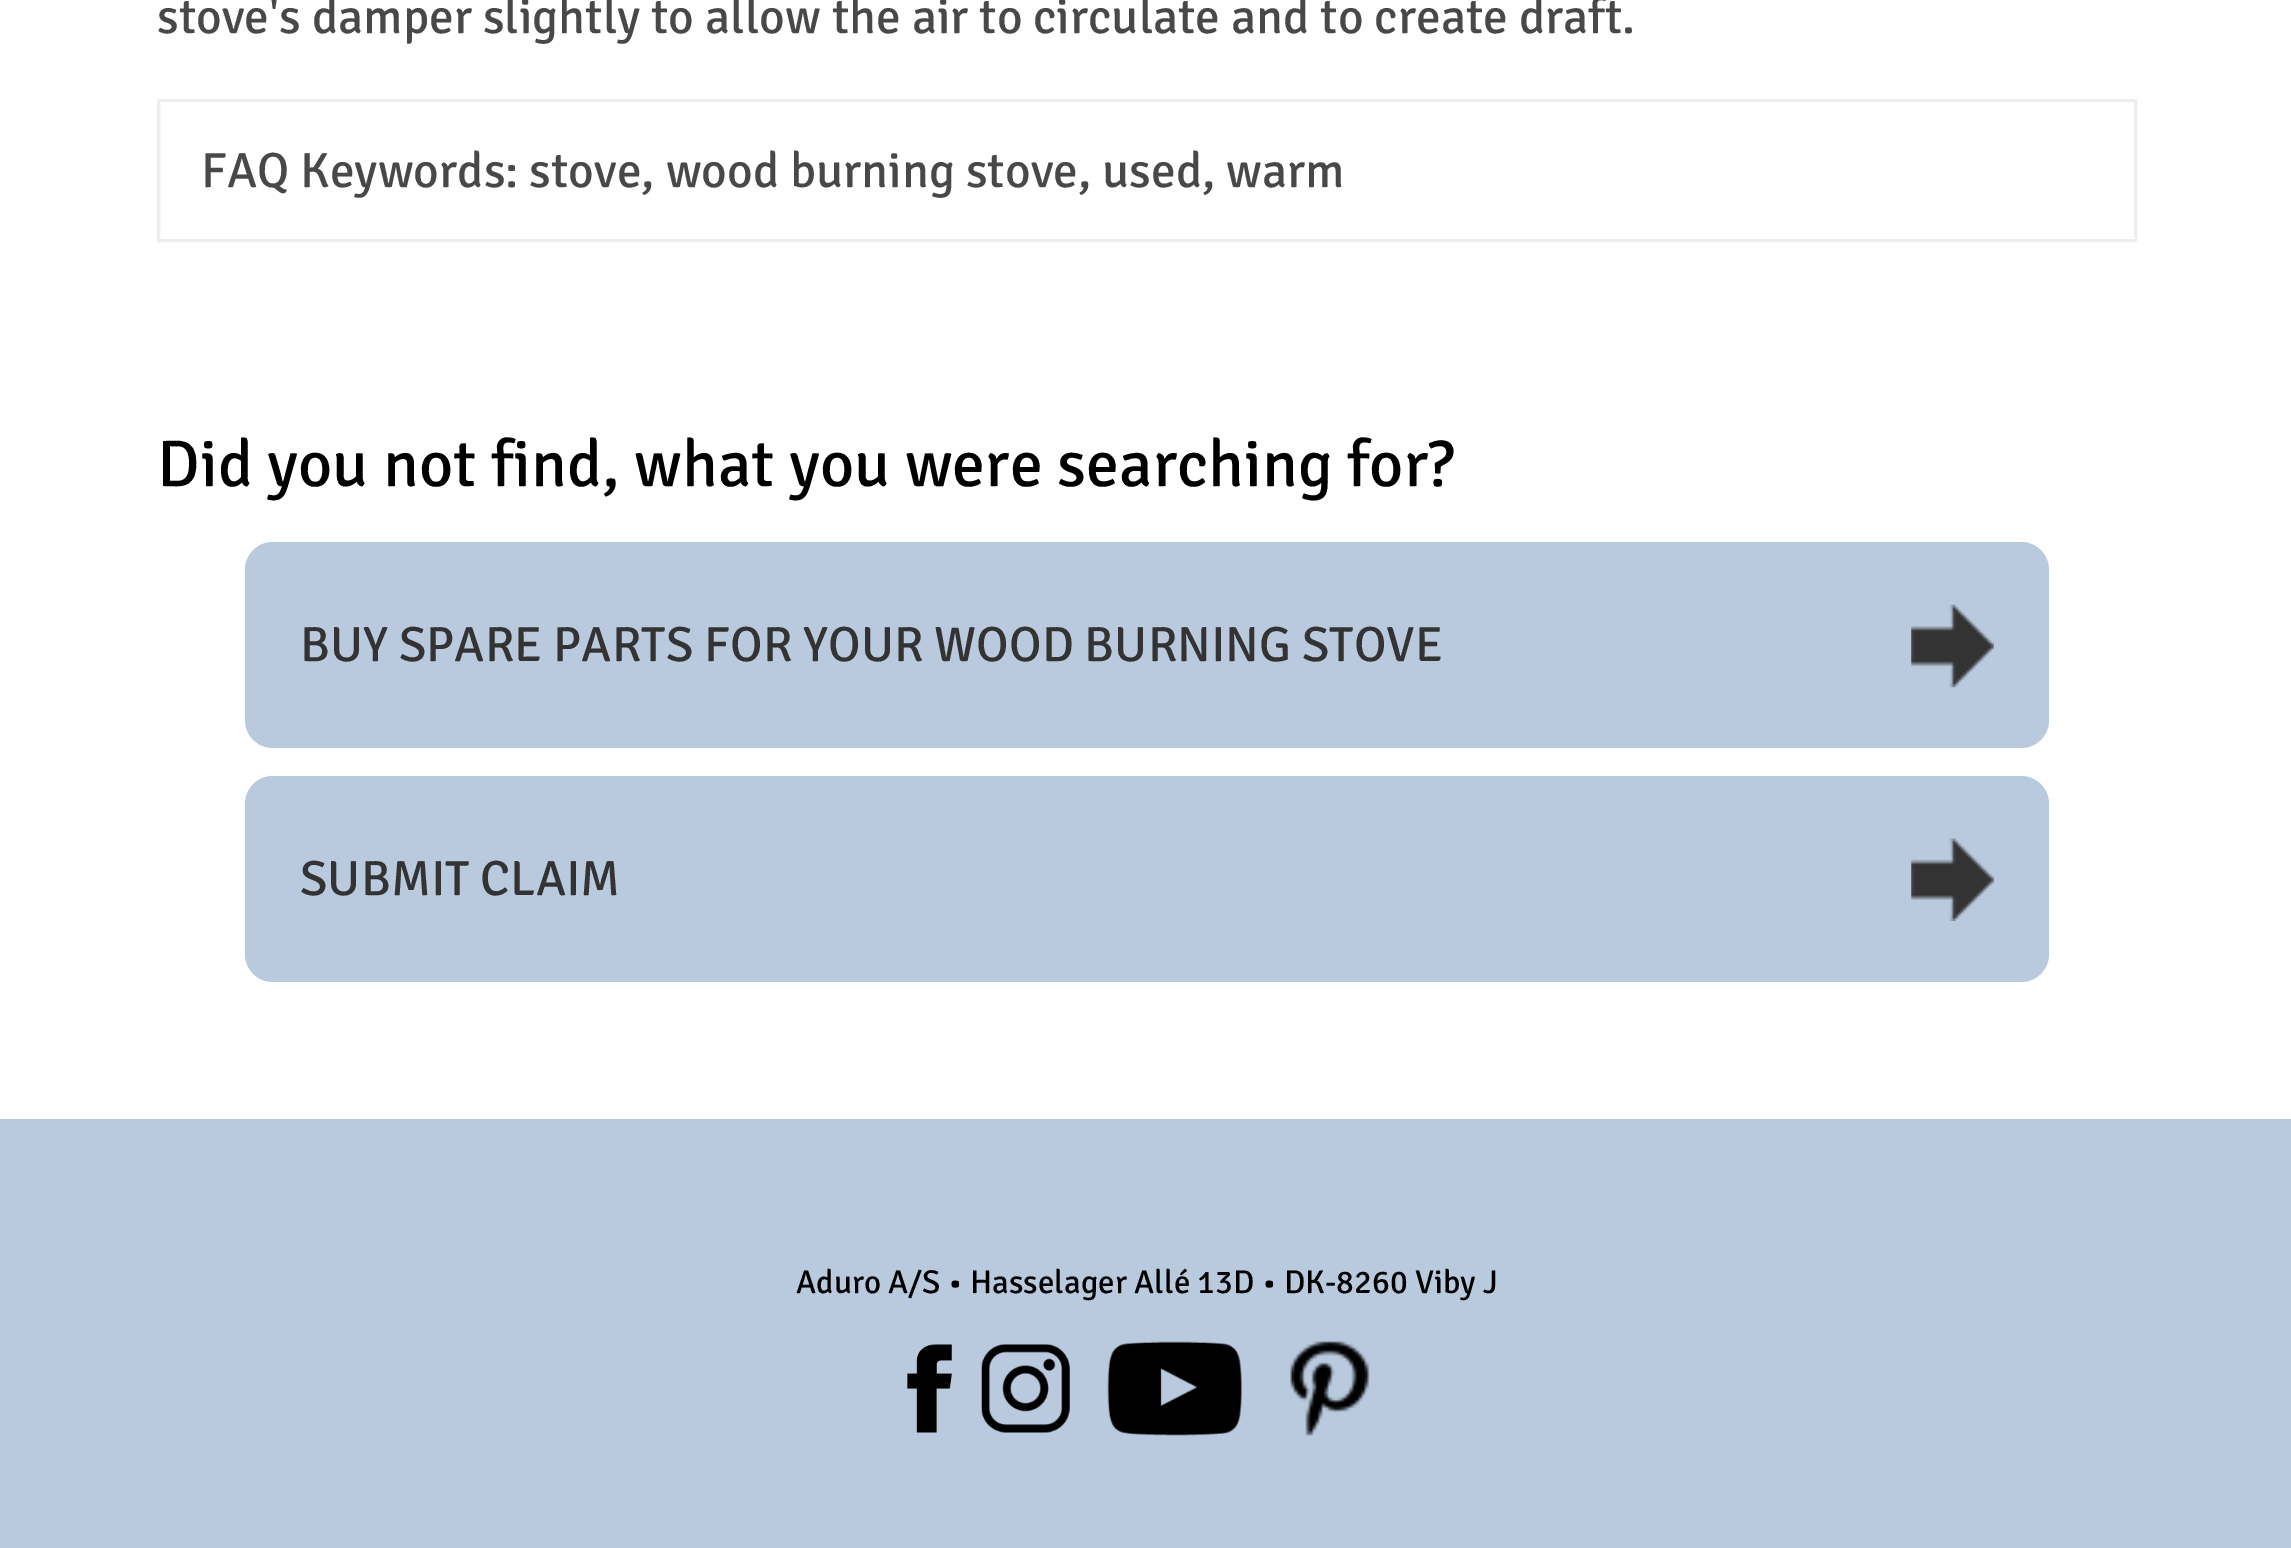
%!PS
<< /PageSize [2291 1548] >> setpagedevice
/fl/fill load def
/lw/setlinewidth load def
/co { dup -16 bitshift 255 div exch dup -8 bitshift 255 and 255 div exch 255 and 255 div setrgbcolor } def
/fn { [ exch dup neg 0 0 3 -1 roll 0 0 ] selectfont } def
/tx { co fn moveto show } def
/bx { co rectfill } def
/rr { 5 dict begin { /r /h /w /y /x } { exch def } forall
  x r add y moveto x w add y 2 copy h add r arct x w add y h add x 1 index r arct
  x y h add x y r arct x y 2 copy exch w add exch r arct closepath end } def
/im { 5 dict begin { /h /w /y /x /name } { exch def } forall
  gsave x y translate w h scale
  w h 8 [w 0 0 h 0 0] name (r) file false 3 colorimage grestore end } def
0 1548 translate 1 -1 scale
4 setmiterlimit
0 0 2291 1548 16#FFFFFF bx
16#EEEEEE co
3 lw
158.5 100.5 1977 140 rectstroke
16#B9CADE co
245 542 1804 206 28 rr fl
(media/1.raw) 1911 604 83 84 im
245 776 1804 206 28 rr fl
(media/2.raw) 1911 838 83 83 im
0 1119 2291 429 16#B9CADE bx
(media/3.raw) 907 1344 45 89 im
(media/4.raw) 981 1344 89 89 im
(media/5.raw) 1107 1341 135 95 im
(media/6.raw) 1290 1341 80 95 im
(stove's damper slightly to allow the air to circulate and to create draft.) 157 33 /Signika-Regular 49.5 16#484848 tx
(FAQ Keywords: stove, wood burning stove, used, warm) 201 187 /Signika-Regular 49.5 16#484848 tx
(Did you not find, what you were searching for?) 157 486 /Signika-Regular 66 16#000000 tx
(BUY SPARE PARTS FOR YOUR WOOD BURNING STOVE) 300 661 /Signika-Regular 49.5 16#333333 tx
(SUBMIT CLAIM) 300 895 /Signika-Regular 49.5 16#333333 tx
(Aduro A/S • Hasselager Allé 13D • DK-8260 Viby J) 796 1293 /Signika-Regular 33 16#000000 tx
showpage
